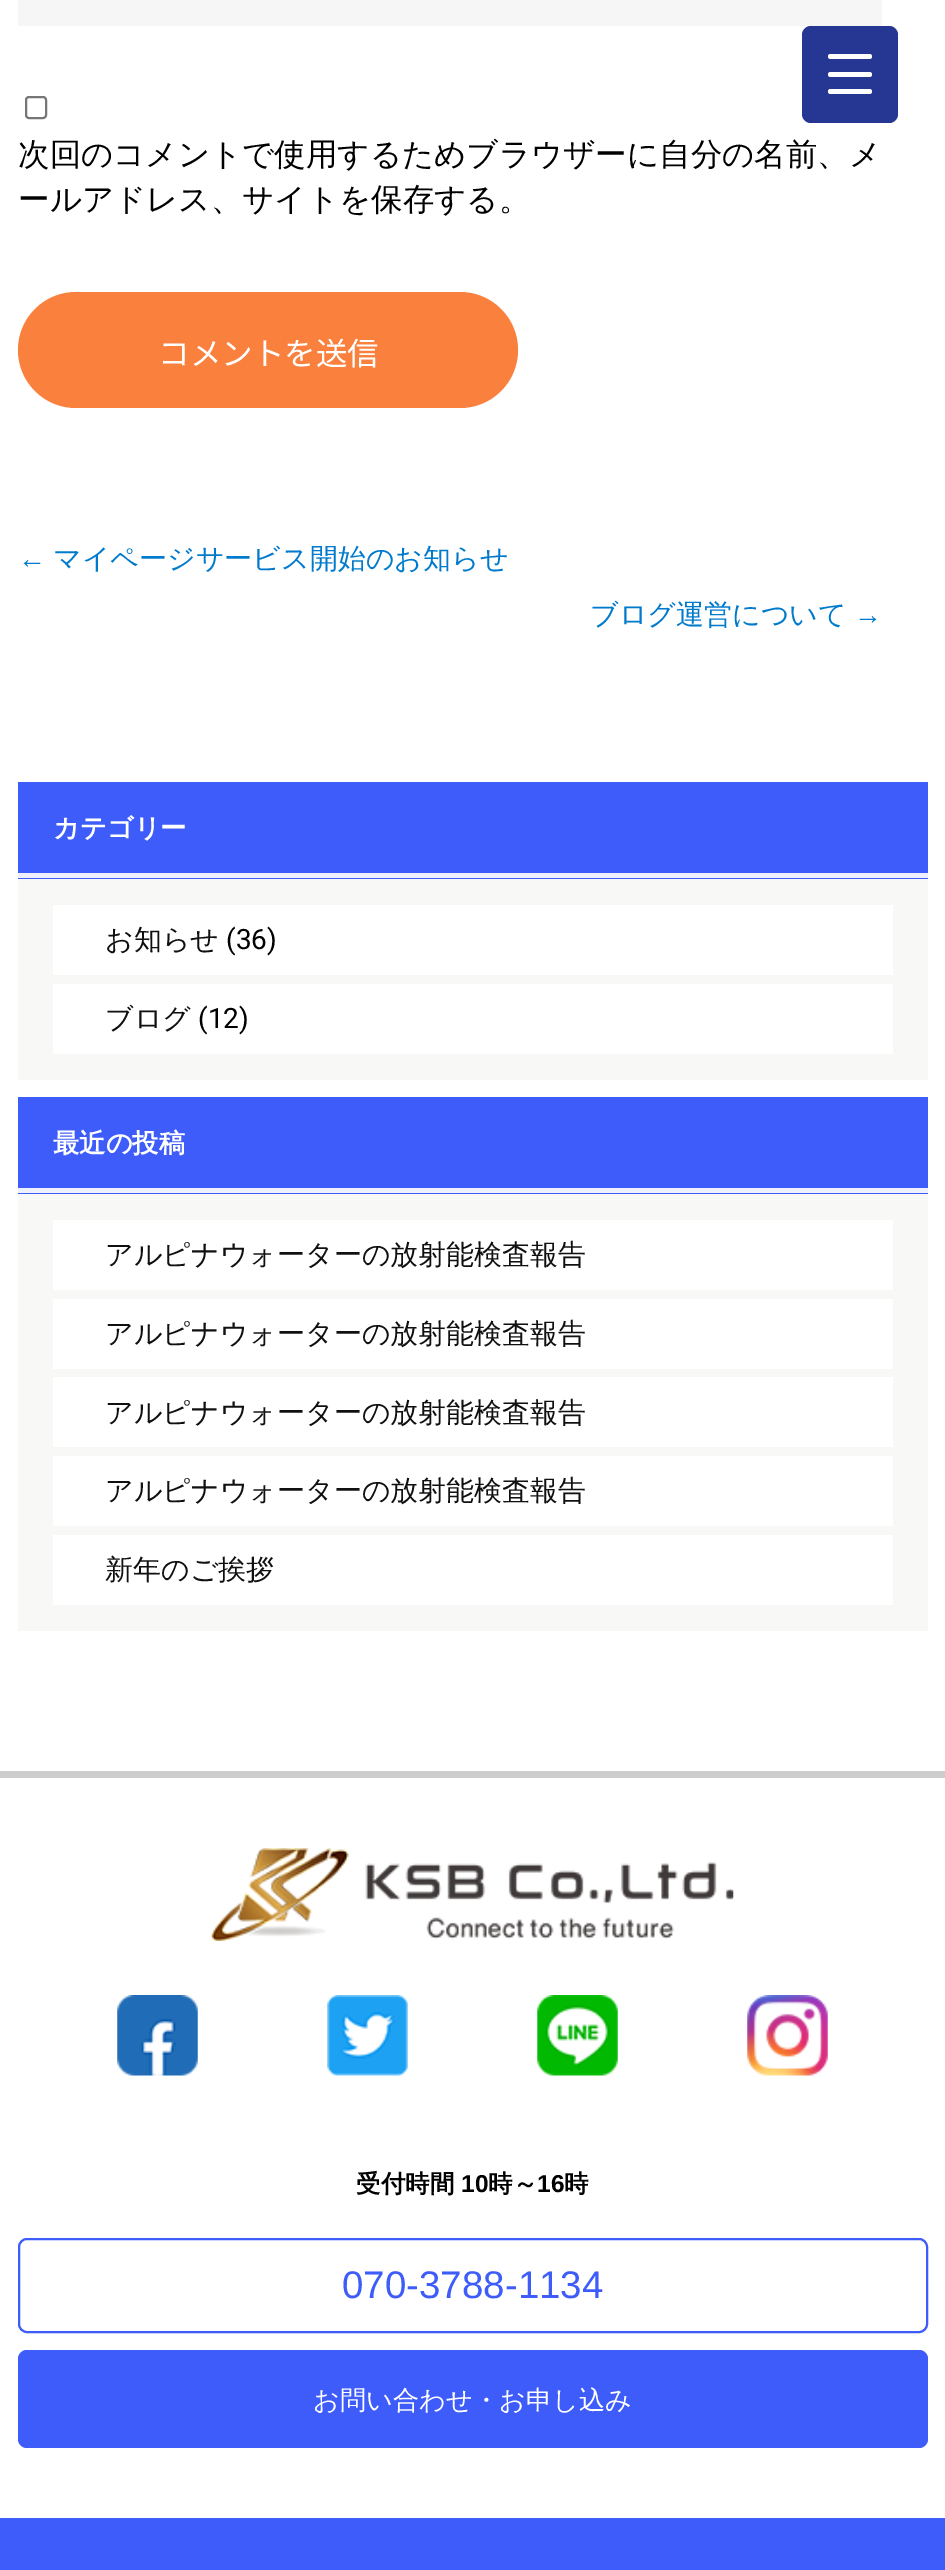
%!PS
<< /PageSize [945 2570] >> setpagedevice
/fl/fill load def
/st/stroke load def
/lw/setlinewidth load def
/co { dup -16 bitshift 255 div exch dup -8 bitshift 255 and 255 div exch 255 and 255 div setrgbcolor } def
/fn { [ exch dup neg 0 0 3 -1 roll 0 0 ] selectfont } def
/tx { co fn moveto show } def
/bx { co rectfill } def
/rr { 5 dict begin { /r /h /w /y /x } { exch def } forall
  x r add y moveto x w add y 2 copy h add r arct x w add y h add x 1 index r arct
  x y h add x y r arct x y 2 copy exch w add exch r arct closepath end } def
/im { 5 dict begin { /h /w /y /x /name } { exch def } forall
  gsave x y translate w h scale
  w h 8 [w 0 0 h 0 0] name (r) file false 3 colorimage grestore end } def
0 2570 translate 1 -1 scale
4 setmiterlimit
0 0 945 2570 16#FFFFFF bx
16#253792 co
802 26 96 97 9 rr fl
16#FFFFFF co
828 72 44 5 2.5 rr fl
828 54 44 5 2.5 rr fl
828 89 44 5 2.5 rr fl
18 0 864 26 16#F6F6F6 bx
16#767676 co
2 lw
26 97 20 21 3 rr st
16#FA803D co
18 292 500 116 58 rr fl
18 879 910 201 16#F8F8F7 bx
18 782 910 97 16#3D5CFA bx
18 873 910 5 16#EEF1FD bx
53 905 840 70 16#FFFFFF bx
53 984 840 70 16#FFFFFF bx
18 1194 910 437 16#F8F8F7 bx
18 1097 910 97 16#3D5CFA bx
18 1188 910 5 16#EEF1FD bx
53 1220 840 70 16#FFFFFF bx
53 1299 840 70 16#FFFFFF bx
53 1377 840 70 16#FFFFFF bx
53 1456 840 70 16#FFFFFF bx
53 1535 840 70 16#FFFFFF bx
0 1771 945 7 16#CDCDCD bx
(media/1.raw) 211 1848 523 93 im
(media/2.raw) 117 1995 81 81 im
(media/3.raw) 327 1995 81 81 im
(media/4.raw) 537 1995 81 81 im
(media/5.raw) 747 1995 81 81 im
16#3D5CFA co
19 2239 908 93 8 rr st
18 2350 910 98 9 rr fl
0 2518 945 52 16#3D5CFA bx
(次回のコメントで使用するためブラウザーに自分の名前、メ) 18 165 /WenQuanYiZenHei-Medium 31.5 16#000000 tx
(ールアドレス、サイトを保存する。) 18 210 /WenQuanYiZenHei-Medium 31.5 16#000000 tx
(コメントを送信) 158 365 /NotoSansCJKJP-Regular 31.5 16#FFFFFF tx
(←) 18 568 /LiberationSans-Regular 28 16#007ACC tx
(マイページサービス開始のお知らせ) 53 568 /WenQuanYiZenHei-Medium 28 16#007ACC tx
(ブログ運営について) 590 624 /WenQuanYiZenHei-Medium 28 16#007ACC tx
(→) 854 624 /LiberationSans-Regular 28 16#007ACC tx
(カテゴリー) 53 837 /WenQuanYiZenHei-Bold 26.25 16#FFFFFF tx
(お知らせ) 105 949 /WenQuanYiZenHei-Medium 28 16#101010 tx
(\(36\)) 226 949 /Roboto-Regular 28 16#000000 tx
(ブログ) 105 1028 /WenQuanYiZenHei-Medium 28 16#101010 tx
(\(12\)) 198 1028 /Roboto-Regular 28 16#000000 tx
(最近の投稿) 53 1152 /WenQuanYiZenHei-Bold 26.25 16#FFFFFF tx
(アルピナウォーターの放射能検査報告) 105 1264 /WenQuanYiZenHei-Medium 28 16#101010 tx
(アルピナウォーターの放射能検査報告) 105 1343 /WenQuanYiZenHei-Medium 28 16#101010 tx
(アルピナウォーターの放射能検査報告) 105 1422 /WenQuanYiZenHei-Medium 28 16#101010 tx
(アルピナウォーターの放射能検査報告) 105 1500 /WenQuanYiZenHei-Medium 28 16#101010 tx
(新年のご挨拶) 105 1579 /WenQuanYiZenHei-Medium 28 16#101010 tx
(受付時間) 356 2192 /WenQuanYiZenHei-Bold 24.5 16#000000 tx
(10) 461 2192 /LiberationSans-Bold 24.5 16#000000 tx
(時～) 488 2192 /WenQuanYiZenHei-Bold 24.5 16#000000 tx
(16) 537 2192 /LiberationSans-Bold 24.5 16#000000 tx
(時) 564 2192 /WenQuanYiZenHei-Bold 24.5 16#000000 tx
(070-3788-1134) 342 2298 /LiberationSans-Regular 38.5 16#3D5CFA tx
(お問い合わせ・お申し込み) 313 2409 /WenQuanYiZenHei-Medium 26.25 16#FFFFFF tx
showpage
